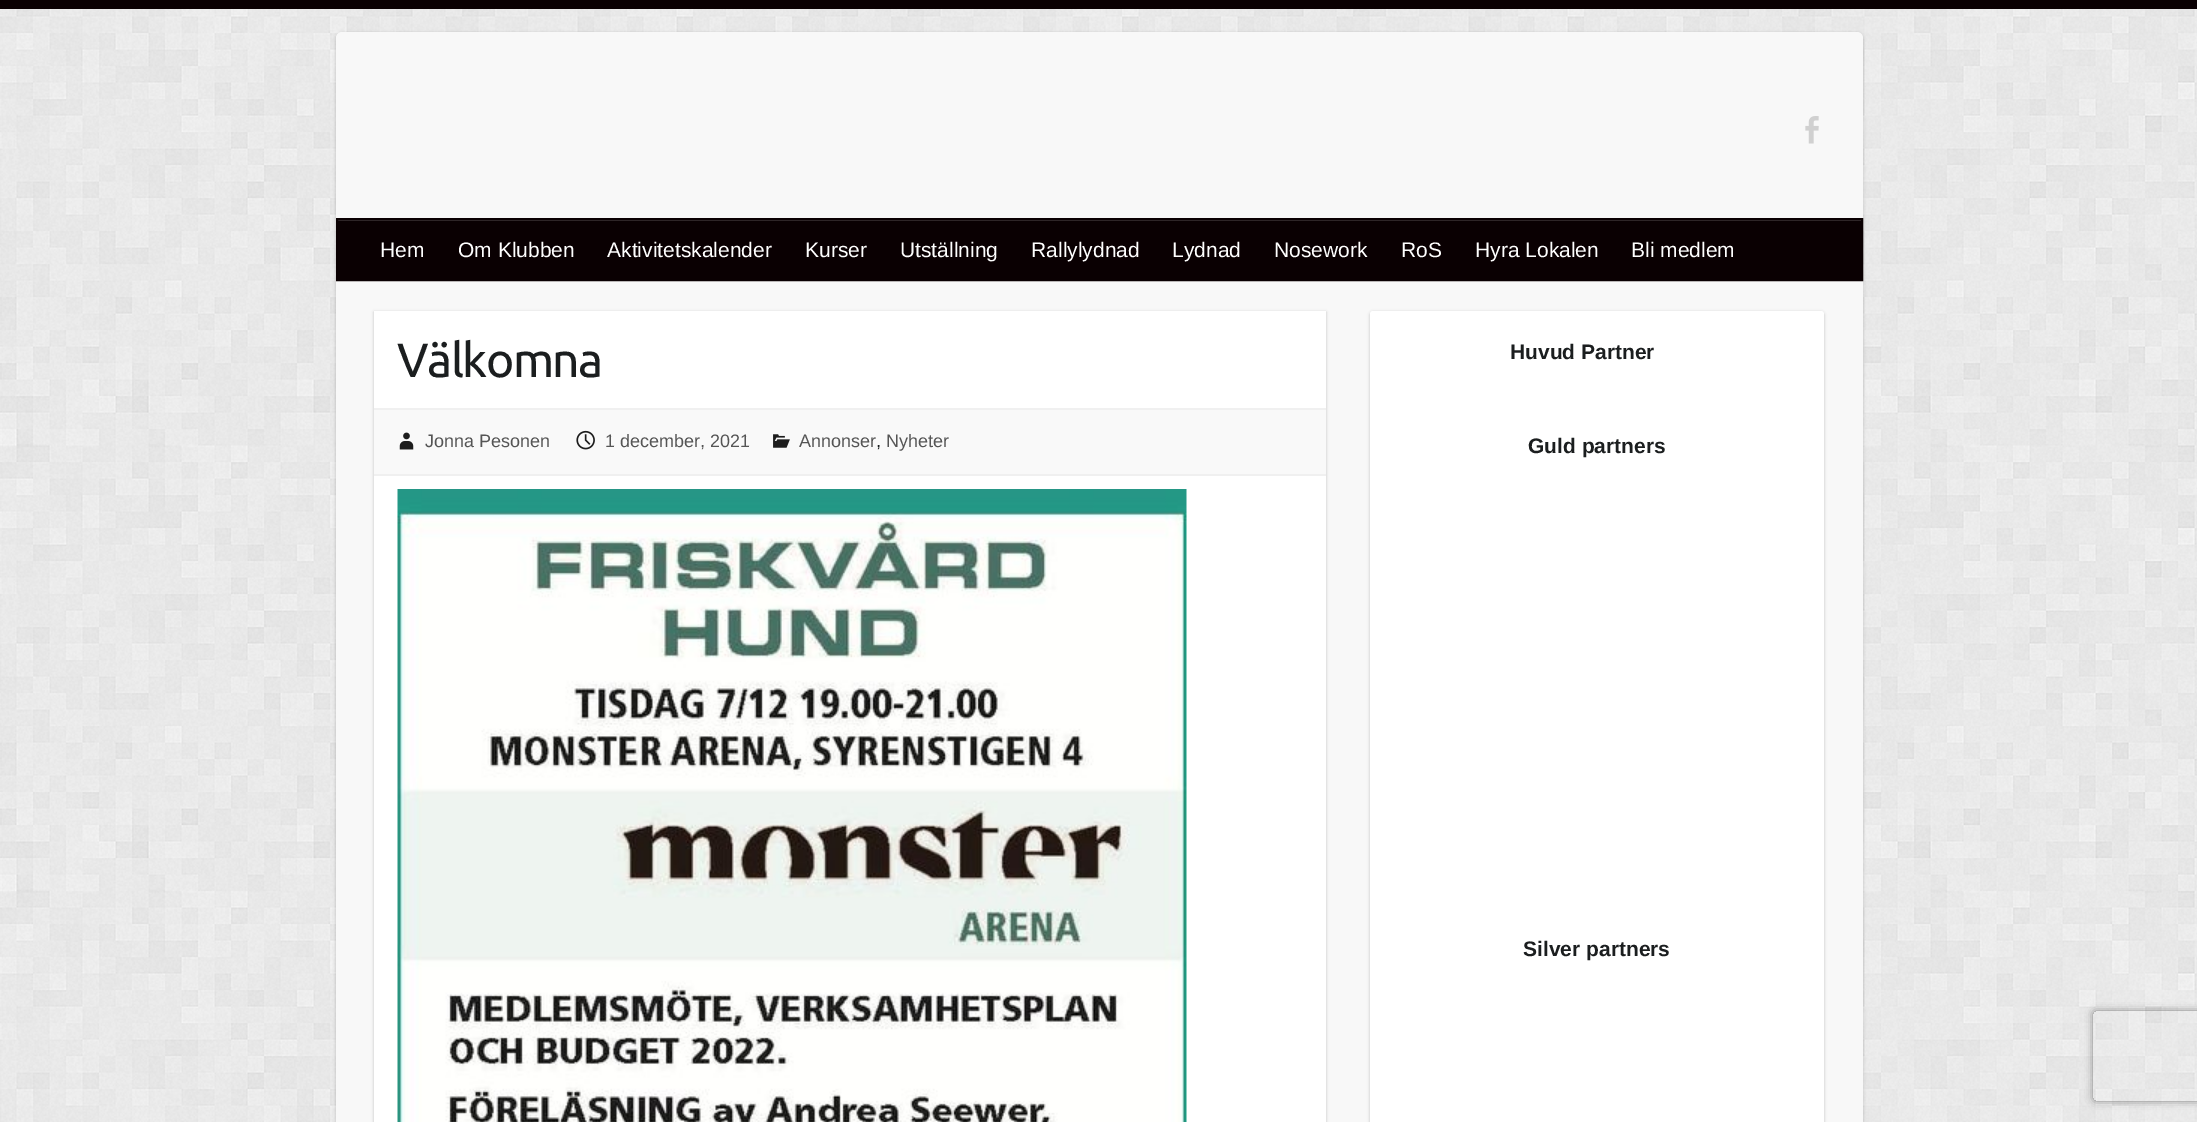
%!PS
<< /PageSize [2197 1122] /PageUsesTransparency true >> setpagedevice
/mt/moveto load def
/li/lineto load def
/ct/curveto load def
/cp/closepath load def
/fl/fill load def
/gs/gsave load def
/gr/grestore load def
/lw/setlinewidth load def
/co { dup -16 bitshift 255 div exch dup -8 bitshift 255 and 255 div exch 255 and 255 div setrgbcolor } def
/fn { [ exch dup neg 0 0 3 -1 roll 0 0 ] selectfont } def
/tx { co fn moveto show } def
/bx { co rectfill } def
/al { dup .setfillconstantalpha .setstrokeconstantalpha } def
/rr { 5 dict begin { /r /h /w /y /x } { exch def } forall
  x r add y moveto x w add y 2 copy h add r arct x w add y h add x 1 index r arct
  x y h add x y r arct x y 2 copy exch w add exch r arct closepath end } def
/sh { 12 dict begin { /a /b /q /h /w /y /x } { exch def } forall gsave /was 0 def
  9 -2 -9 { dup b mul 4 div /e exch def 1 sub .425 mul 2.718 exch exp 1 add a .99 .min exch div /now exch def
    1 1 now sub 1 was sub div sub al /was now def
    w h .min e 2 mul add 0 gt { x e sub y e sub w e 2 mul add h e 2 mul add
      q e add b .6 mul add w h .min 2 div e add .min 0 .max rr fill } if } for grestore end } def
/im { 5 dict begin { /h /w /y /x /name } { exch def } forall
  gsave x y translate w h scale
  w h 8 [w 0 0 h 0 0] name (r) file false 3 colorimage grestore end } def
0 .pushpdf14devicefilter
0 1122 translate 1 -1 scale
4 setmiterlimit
0 0 2197 1122 16#FFFFFF bx
(media/1.raw) 0 9 2197 1113 im
0 0 2197 9 16#0A0002 bx
16#000000 co
336 33 1527 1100 6 1.5 .2 sh
16#F8F8F8 co
336 32 1527 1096 6 rr fl
(media/2.raw) 1805 116 14 28 im
338 221 1523 58 16#0A0002 bx
338 220 1524 1 16#3B3335 bx
16#0A0002 co
2 lw
337 219 1525 61 rectstroke
16#000000 co
374 312 952 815 0 1.5 .2 sh
374 311 952 811 16#FFFFFF bx
374 410 952 64 16#F9F9F9 bx
374 408 952 2 16#F0F0F0 bx
374 474 952 2 16#F0F0F0 bx
(media/3.raw) 399 432 15 18 im
(media/4.raw) 576 430 19 20 im
(media/5.raw) 773 434 17 14 im
(media/6.raw) 397 489 790 633 im
16#000000 co
1370 312 454 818 3 1.5 .2 sh
16#FFFFFF co
1370 311 454 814 3 rr fl
gs
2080 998 mt 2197 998 li 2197 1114 li 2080 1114 li cp 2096 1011 mt 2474 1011 li 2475.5 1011 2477 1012.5 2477 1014 ct 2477 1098 li 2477 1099.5 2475.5 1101 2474 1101 ct 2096 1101 li 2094.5 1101 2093 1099.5 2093 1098 ct 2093 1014 li 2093 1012.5 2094.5 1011 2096 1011 ct cp eoclip newpath
16#808080 co
2093 1011 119 90 3 4 1 sh
gr
(Hem) 380 257 /LiberationSans-Regular 21 16#FFFFFF tx
(Om Klubben) 458 257 /LiberationSans-Regular 21 16#FFFFFF tx
(Aktivitetskalender) 607 257 /LiberationSans-Regular 21 16#FFFFFF tx
(Kurser) 805 257 /LiberationSans-Regular 21 16#FFFFFF tx
(Utställning) 900 257 /LiberationSans-Regular 21 16#FFFFFF tx
(Rallylydnad) 1031 257 /LiberationSans-Regular 21 16#FFFFFF tx
(Lydnad) 1172 257 /LiberationSans-Regular 21 16#FFFFFF tx
(Nosework) 1274 257 /LiberationSans-Regular 21 16#FFFFFF tx
(RoS) 1401 257 /LiberationSans-Regular 21 16#FFFFFF tx
(Hyra Lokalen) 1475 257 /LiberationSans-Regular 21 16#FFFFFF tx
(Bli medlem) 1631 257 /LiberationSans-Regular 21 16#FFFFFF tx
/Ubuntu-Regular 48 fn
16#1B1E1F co
397 377 mt -1.5 0 (Välkomna) ashow
(Jonna Pesonen) 425 447 /LiberationSans-Regular 18 16#555555 tx
(1 december, 2021) 605 447 /LiberationSans-Regular 18 16#555555 tx
(Annonser) 799 447 /LiberationSans-Regular 18 16#555555 tx
(,) 876 447 /LiberationSans-Regular 18 16#1B1E1F tx
(Nyheter) 886 447 /LiberationSans-Regular 18 16#555555 tx
(Huvud Partner) 1510 359 /LiberationSans-Bold 21 16#1B1E1F tx
(Guld partners) 1528 453 /LiberationSans-Bold 21 16#1B1E1F tx
(Silver partners) 1523 956 /LiberationSans-Bold 21 16#1B1E1F tx
.poppdf14devicefilter showpage
